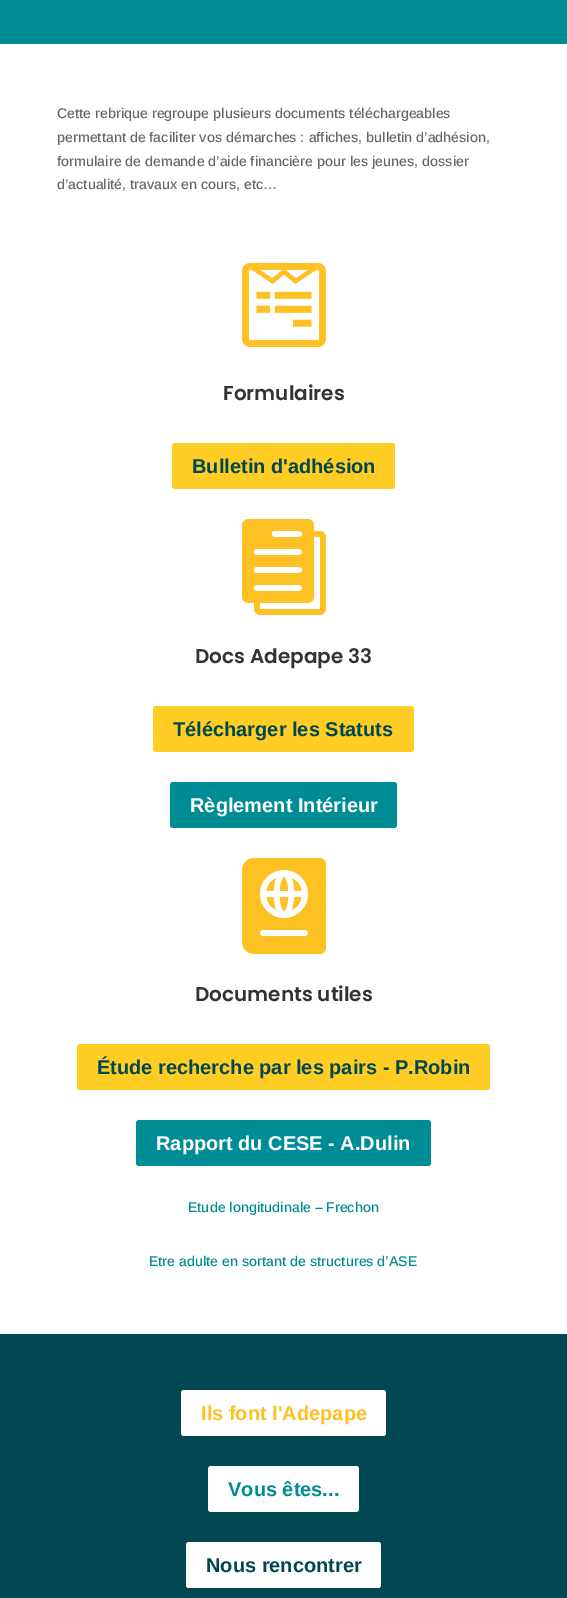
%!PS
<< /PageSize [567 1598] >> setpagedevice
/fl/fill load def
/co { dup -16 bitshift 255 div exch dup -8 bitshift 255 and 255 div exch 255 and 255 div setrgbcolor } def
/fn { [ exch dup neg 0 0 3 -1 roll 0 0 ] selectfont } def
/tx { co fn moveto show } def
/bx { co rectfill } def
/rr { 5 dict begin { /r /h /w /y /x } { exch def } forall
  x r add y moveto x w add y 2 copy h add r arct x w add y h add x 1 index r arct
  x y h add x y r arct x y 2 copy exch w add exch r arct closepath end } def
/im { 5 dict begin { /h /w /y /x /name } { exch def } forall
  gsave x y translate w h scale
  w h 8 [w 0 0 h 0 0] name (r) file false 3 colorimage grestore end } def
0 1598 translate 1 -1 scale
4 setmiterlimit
0 0 567 1598 16#FFFFFF bx
0 0 567 44 16#008C93 bx
(media/1.raw) 242 263 84 84 im
16#FFCD23 co
172 443 223 46 3 rr fl
(media/2.raw) 242 519 84 96 im
153 706 261 46 3 rr fl
16#008C95 co
170 782 227 46 3 rr fl
(media/3.raw) 242 858 84 96 im
16#FFCD23 co
77 1044 413 46 3 rr fl
16#008C95 co
136 1120 295 46 3 rr fl
0 1334 567 264 16#004753 bx
16#FFFFFF co
181 1390 205 46 3 rr fl
208 1466 151 46 3 rr fl
186 1542 195 46 3 rr fl
(Cette rebrique regroupe plusieurs documents téléchargeables) 57 118 /Arimo-Medium 14 16#666666 tx
(permettant de faciliter vos démarches : affiches, bulletin d’adhésion,) 57 142 /Arimo-Medium 14 16#666666 tx
(formulaire de demande d’aide financière pour les jeunes, dossier) 57 166 /Arimo-Medium 14 16#666666 tx
(d’actualité, travaux en cours, etc…) 57 189 /Arimo-Medium 14 16#666666 tx
(Formulaires) 223 400 /Poppins-SemiBold 20 16#333333 tx
(Bulletin d'adhésion) 192 473 /Arimo-Bold 20 16#004750 tx
(Docs Adepape 33) 195 663 /Poppins-SemiBold 20 16#333333 tx
(Télécharger les Statuts) 173 736 /Arimo-Bold 20 16#004750 tx
(Règlement Intérieur) 190 812 /Arimo-Bold 20 16#FFFFFF tx
(Documents utiles) 195 1001 /Poppins-SemiBold 20 16#333333 tx
(Étude recherche par les pairs - P.Robin) 97 1074 /Arimo-Bold 20 16#004750 tx
(Rapport du CESE - A.Dulin) 156 1150 /Arimo-Bold 20 16#FFFFFF tx
(Etude longitudinale – Frechon) 188 1212 /Arimo-Medium 14 16#008C93 tx
(Etre adulte en sortant de structures d’ASE) 149 1266 /Arimo-Medium 14 16#008C93 tx
(Ils font l'Adepape) 201 1420 /Arimo-Bold 20 16#FFC023 tx
(Vous êtes...) 228 1496 /Arimo-Bold 20 16#008C93 tx
(Nous rencontrer) 206 1572 /Arimo-Bold 20 16#004750 tx
showpage
